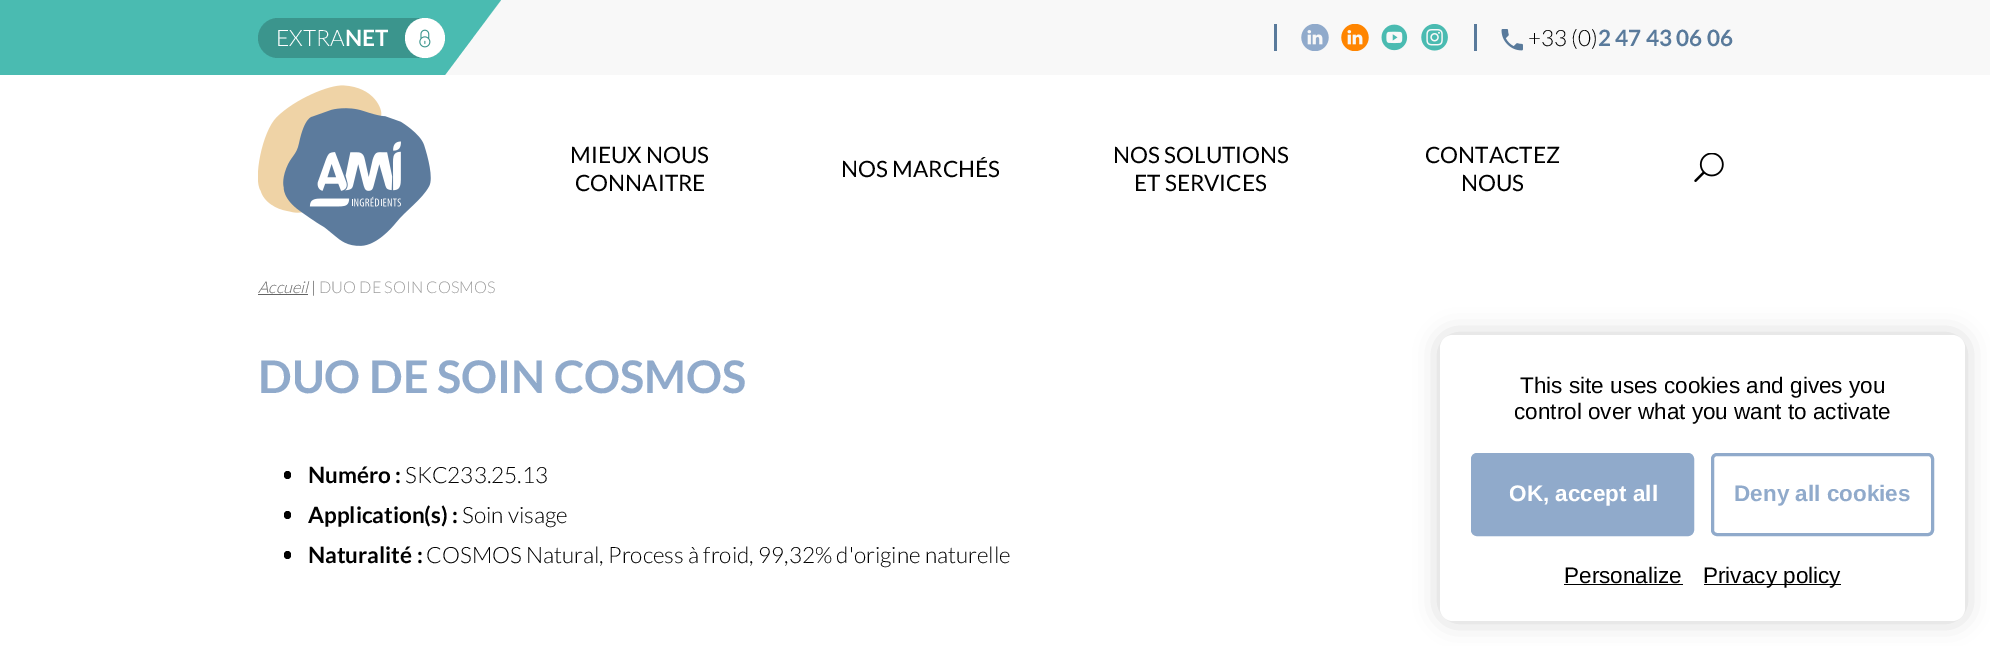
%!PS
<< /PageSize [1990 646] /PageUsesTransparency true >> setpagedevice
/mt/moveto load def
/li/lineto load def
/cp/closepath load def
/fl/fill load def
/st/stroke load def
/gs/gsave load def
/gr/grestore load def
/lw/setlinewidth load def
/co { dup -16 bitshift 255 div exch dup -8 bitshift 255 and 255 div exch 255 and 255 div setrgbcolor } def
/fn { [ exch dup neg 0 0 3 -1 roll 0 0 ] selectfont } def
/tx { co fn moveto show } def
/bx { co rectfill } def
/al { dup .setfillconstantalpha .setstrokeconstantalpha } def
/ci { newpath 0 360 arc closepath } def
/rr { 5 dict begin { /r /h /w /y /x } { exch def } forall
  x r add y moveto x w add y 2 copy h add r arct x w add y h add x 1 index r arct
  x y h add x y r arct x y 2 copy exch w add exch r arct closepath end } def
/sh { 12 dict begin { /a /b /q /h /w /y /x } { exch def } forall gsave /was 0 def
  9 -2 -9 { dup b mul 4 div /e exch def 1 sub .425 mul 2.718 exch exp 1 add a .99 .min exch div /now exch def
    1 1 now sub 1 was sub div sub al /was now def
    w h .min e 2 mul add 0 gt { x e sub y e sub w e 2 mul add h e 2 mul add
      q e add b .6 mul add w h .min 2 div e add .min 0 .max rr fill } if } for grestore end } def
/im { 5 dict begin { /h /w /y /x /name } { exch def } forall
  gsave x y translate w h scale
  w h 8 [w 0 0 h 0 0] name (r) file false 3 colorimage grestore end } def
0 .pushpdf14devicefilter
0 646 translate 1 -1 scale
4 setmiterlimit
0 0 1990 646 16#FFFFFF bx
445 0 1545 75 16#F8F8F8 bx
0 0 445 75 16#4ABBB1 bx
16#3B958D co
258 18 187 40 20 rr fl
16#FFFFFF co
425 38 20 ci fl
(media/1.raw) 419 29 12 19 im
16#4ABBB1 co
445 0 mt 501 0 li 445 75 li cp fl
1474 24 3 27 16#597A9B bx
1274 24 3 27 16#597A9B bx
(media/2.raw) 1301 24 28 27 im
(media/3.raw) 1341 24 28 27 im
(media/4.raw) 1381 24 27 27 im
(media/5.raw) 1421 24 27 27 im
(media/6.raw) 1501 29 22 22 im
(media/7.raw) 258 85 173 161 im
(media/8.raw) 1694 153 30 29 im
258 294 50 1 16#646464 bx
16#000000 co
284 471 7 8 3.5 rr fl
284 511 7 8 3.5 rr fl
284 551 7 8 3.5 rr fl
1440 335 525 286 13 12.5 .18 sh
16#FFFFFF co
1440 335 525 286 13 rr fl
16#90AACB co
1472.5 454.5 220 80 4.5 rr gs fl gr
3 lw
st
1712.5 454.5 220 80 4.5 rr st
1564 584 119 1 16#000000 bx
1704 584 137 1 16#000000 bx
(EXTRA) 276 46 /Lato-Light 22.5 16#FFFFFF tx
(NET) 345 46 /Lato-Bold 22.5 16#FFFFFF tx
(+33 \(0\)) 1528 46 /Lato-Light 22.5 16#000000 tx
(2 47 43 06 06) 1598 46 /Lato-Bold 22.5 16#597A9B tx
(MIEUX NOUS) 570 163 /Lato-Regular 22.5 16#000000 tx
(CONNAITRE) 575 191 /Lato-Regular 22.5 16#000000 tx
(NOS MARCHÉS) 841 177 /Lato-Regular 22.5 16#000000 tx
(NOS SOLUTIONS) 1113 163 /Lato-Regular 22.5 16#000000 tx
(ET SERVICES) 1134 191 /Lato-Regular 22.5 16#000000 tx
(CONTACTEZ) 1425 163 /Lato-Regular 22.5 16#000000 tx
(NOUS) 1461 191 /Lato-Regular 22.5 16#000000 tx
(Accueil) 258 293 /Lato-LightItalic 16.25 16#646464 tx
(|) 311 293 /Lato-Light 16.25 16#646464 tx
(DUO DE SOIN COSMOS) 319 293 /Lato-Light 16.25 16#9A9A9A tx
(DUO DE SOIN COSMOS) 258 393 /Lato-Bold 45 16#90AACB tx
(Numéro :) 308 483 /Lato-Bold 22.5 16#000000 tx
(SKC233.25.13) 405 483 /Lato-Light 22.5 16#000000 tx
(Application\(s\) :) 308 523 /Lato-Bold 22.5 16#000000 tx
(Soin visage) 462 523 /Lato-Light 22.5 16#000000 tx
(Naturalité :) 308 563 /Lato-Bold 22.5 16#000000 tx
(COSMOS Natural, Process à froid, 99,32% d'origine naturelle) 426 563 /Lato-Light 22.5 16#000000 tx
(This site uses cookies and gives you) 1520 393 /LiberationSans-Regular 22.5 16#000000 tx
(control over what you want to activate) 1514 419 /LiberationSans-Regular 22.5 16#000000 tx
(OK, accept all) 1509 501 /LiberationSans-Bold 22.5 16#FFFFFF tx
(Deny all cookies) 1734 501 /LiberationSans-Bold 22.5 16#90AACB tx
(Personalize) 1564 583 /LiberationSans-Regular 22.5 16#000000 tx
(Privacy policy) 1703 583 /LiberationSans-Regular 22.5 16#000000 tx
.poppdf14devicefilter showpage
